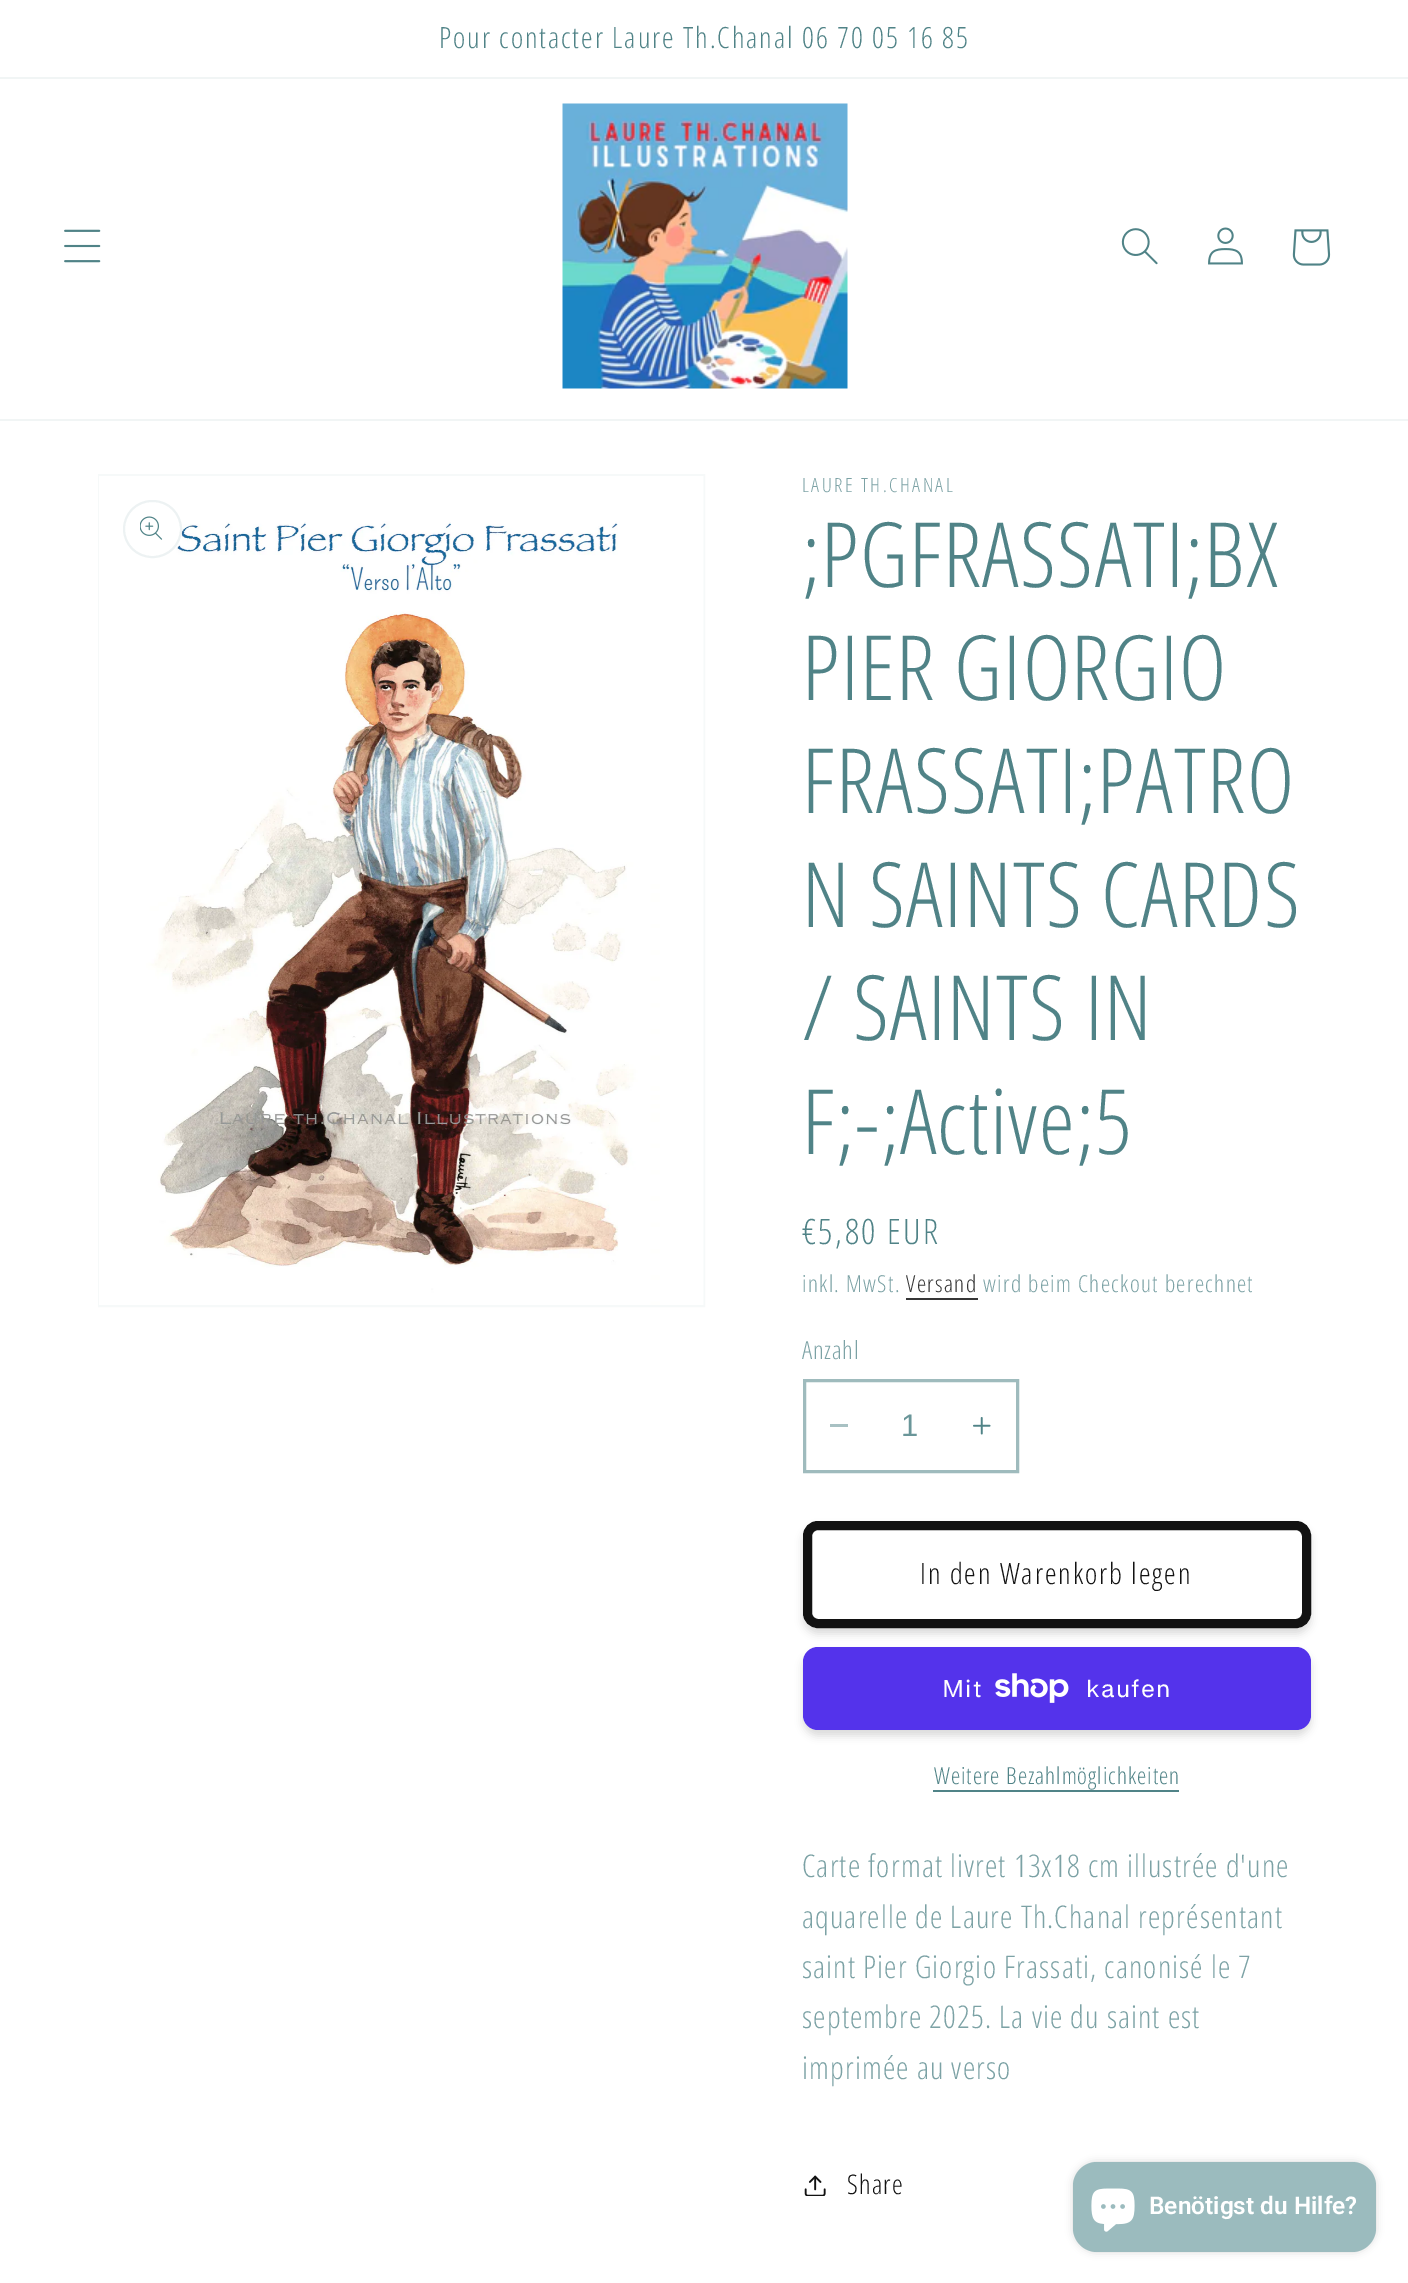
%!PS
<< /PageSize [1408 2283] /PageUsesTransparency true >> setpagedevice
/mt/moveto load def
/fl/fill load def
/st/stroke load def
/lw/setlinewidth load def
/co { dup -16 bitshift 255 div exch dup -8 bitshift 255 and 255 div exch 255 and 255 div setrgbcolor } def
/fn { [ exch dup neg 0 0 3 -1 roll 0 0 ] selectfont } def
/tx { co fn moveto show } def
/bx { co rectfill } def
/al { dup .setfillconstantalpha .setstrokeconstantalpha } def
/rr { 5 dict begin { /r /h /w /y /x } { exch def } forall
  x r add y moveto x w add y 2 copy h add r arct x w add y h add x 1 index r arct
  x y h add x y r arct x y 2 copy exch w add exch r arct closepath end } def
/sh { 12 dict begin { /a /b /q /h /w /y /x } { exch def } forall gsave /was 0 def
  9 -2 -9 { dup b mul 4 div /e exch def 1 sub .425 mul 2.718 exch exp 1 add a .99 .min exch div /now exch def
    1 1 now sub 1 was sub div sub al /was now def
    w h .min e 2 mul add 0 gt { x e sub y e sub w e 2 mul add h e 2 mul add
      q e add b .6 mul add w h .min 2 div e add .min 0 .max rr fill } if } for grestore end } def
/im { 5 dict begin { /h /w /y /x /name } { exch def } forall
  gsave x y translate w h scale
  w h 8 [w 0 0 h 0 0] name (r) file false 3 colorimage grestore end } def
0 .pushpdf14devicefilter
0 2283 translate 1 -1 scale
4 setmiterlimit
0 0 1408 2283 16#FFFFFF bx
0 77 1408 2 16#F1F5F5 bx
0 419 1408 2 16#F1F5F5 bx
(media/1.raw) 64 229 37 34 im
(media/2.raw) 562 103 286 286 im
(media/3.raw) 1121 228 37 37 im
(media/4.raw) 1208 227 35 38 im
(media/5.raw) 1292 229 39 37 im
16#F6F9F9 co
2 lw
99 475 605 831 rectstroke
(media/6.raw) 99 476 605 829 im
16#FFFFFF co
123 500 59 58 29 rr fl
0.1 al
16#508387 co
124 501 57 56 28 rr st
1 al
(media/7.raw) 140 516 23 24 im
906 1298 72 2 16#363636 bx
830 1424 18 3 16#A8C1C3 bx
(media/8.raw) 973 1417 18 18 im
16#9FBBBD co
3 lw
804.5 1380.5 213 91 rectstroke
16#121212 co
803 1527 508 107 15 4 .15 sh
16#FFFFFF co
803 1521 508 107 15 rr fl
9 lw
807.5 1525.5 499 98 10.5 rr st
16#121212 co
807.5 1525.5 499 98 10.5 rr st
803 1653 508 83 15 4 .15 sh
16#5433EB co
803 1647 508 83 15 rr fl
(media/9.raw) 995 1673 74 30 im
933 1790 246 2 16#508387 bx
(media/10.raw) 804 2175 22 21 im
16#000000 co
1073 2162 303 90 24 4 .15 sh
16#9BBBBE co
1073 2162 303 90 24 rr fl
(media/11.raw) 1091 2188 44 44 im
/OpenSansCondensed-Light 29.25 fn
16#508387 co
439 48 mt 1.95 0 (Pour contacter Laure Th.Chanal 06 70 05 16 85) ashow
/OpenSansCondensed-Light 19.5 fn
16#7CA2A5 co
802 492 mt 2.5 0 (LAURE TH.CHANAL) ashow
/OpenSansCondensed-Light 90 fn
16#508387 co
802 587 mt 1.4 0 (;PGFRASSATI;BX) ashow
802 700 mt 1.4 0 (PIER GIORGIO) ashow
802 813 mt 1.4 0 (FRASSATI;PATRO) ashow
802 927 mt 1.4 0 (N SAINTS CARDS) ashow
802 1040 mt 1.4 0 (/ SAINTS IN) ashow
802 1154 mt 1.4 0 (F;-;Active;5) ashow
/OpenSansCondensed-Light 35 fn
802 1244 mt 2.5 0 (€5,80 EUR) ashow
/OpenSansCondensed-Light 23.4 fn
16#7CA2A5 co
802 1292 mt 1.35 0 (inkl. MwSt.) ashow
16#363636 co
906 1292 mt 1.35 0 (Versand) ashow
16#7CA2A5 co
983 1292 mt 1.35 0 (wird beim Checkout berechnet) ashow
/OpenSansCondensed-Light 25 fn
802 1359 mt .75 0 (Anzahl) ashow
(1) 901 1436 /LiberationSans-Regular 31.25 16#6A9699 tx
/OpenSansCondensed-Light 29.25 fn
16#121212 co
920 1584 mt 1.95 0 (In den Warenkorb legen) ashow
/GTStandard-Regular 24 fn
16#FFFFFF co
942 1697 mt 1.15 0 (Mit) ashow
1086 1697 mt 1.15 0 (kaufen) ashow
/OpenSansCondensed-Light 23.4 fn
16#508387 co
934 1784 mt 1 0 (Weitere Bezahlmöglichkeiten) ashow
/OpenSansCondensed-Light 31.25 fn
16#7CA2A5 co
802 1877 mt 1.15 0 (Carte format livret 13x18 cm illustrée d'une) ashow
802 1928 mt 1.15 0 (aquarelle de Laure Th.Chanal représentant) ashow
802 1978 mt 1.15 0 (saint Pier Giorgio Frassati, canonisé le 7) ashow
802 2028 mt 1.15 0 (septembre 2025. La vie du saint est) ashow
802 2079 mt 1.15 0 (imprimée au verso) ashow
/OpenSansCondensed-Light 27 fn
16#121212 co
847 2194 mt 1.15 0 (Share) ashow
(Benötigst du Hilfe?) 1149 2214 /Roboto-SemiBold 24.4 16#FFFFFF tx
.poppdf14devicefilter showpage
